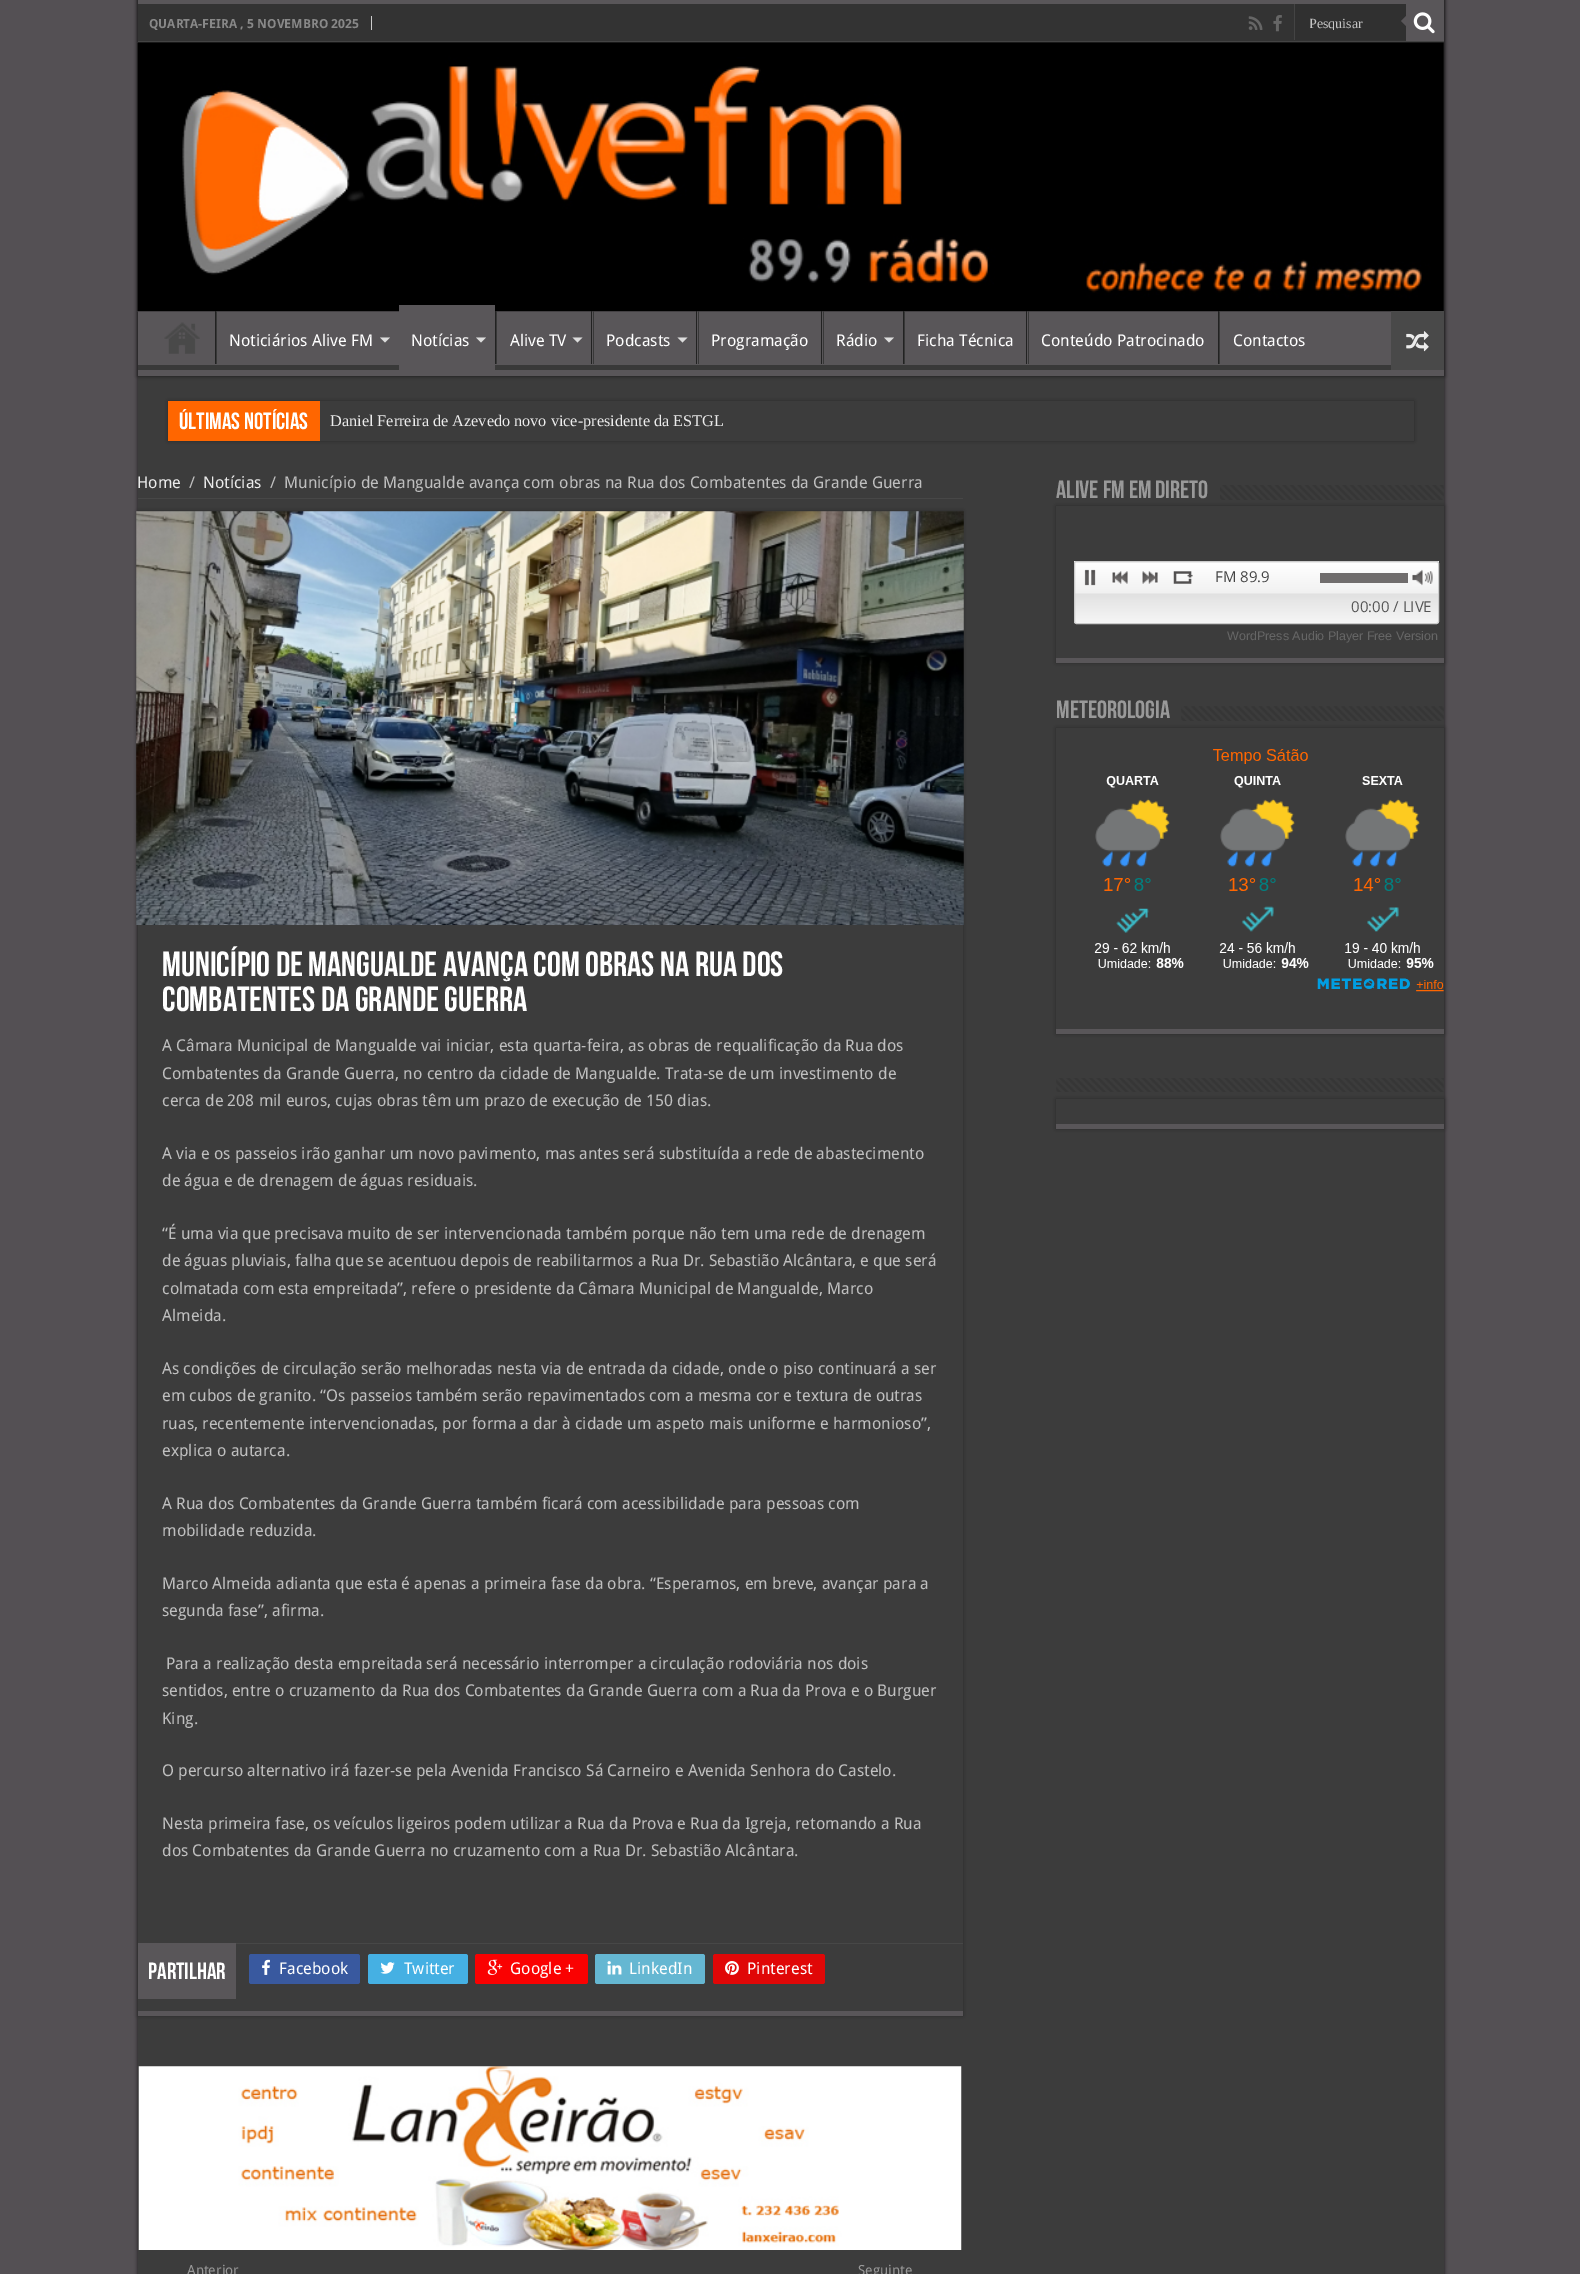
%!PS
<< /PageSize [1580 2274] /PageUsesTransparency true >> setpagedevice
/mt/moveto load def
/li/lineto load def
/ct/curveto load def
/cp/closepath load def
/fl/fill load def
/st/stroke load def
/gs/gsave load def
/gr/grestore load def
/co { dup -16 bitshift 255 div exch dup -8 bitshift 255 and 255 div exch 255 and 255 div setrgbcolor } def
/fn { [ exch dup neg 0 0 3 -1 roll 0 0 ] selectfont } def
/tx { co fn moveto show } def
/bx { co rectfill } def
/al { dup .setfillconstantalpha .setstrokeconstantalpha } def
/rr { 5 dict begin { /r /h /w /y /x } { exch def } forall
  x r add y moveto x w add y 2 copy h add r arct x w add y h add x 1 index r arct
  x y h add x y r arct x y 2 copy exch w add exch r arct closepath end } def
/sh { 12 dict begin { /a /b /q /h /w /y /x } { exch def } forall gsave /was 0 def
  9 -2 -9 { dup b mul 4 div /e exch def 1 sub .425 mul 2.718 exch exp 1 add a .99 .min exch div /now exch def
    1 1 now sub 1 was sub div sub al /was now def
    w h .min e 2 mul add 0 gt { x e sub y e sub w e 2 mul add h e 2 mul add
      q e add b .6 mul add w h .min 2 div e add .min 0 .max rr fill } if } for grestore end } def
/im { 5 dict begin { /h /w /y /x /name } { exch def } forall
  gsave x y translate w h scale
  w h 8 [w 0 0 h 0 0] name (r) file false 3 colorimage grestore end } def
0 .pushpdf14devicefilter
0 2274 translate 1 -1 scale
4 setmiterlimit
0 0 1580 2274 16#545054 bx
16#141414 co
138 0 1306 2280 0 2 1 sh
138 43 1306 2231 16#3C3C3C bx
16#141414 co
138 0 1306 376 0 2 1 sh
138 0 1306 4 16#595659 bx
138 4 1306 39 16#333333 bx
138 41 1306 1 16#444444 bx
371 16 1 14 16#CCCCCC bx
(media/1.raw) 1248 16 15 14 im
(media/2.raw) 1273 15 9 17 im
1295 4 111 36 16#303030 bx
1294 4 1 36 16#444444 bx
1406 4 38 37 16#595659 bx
(media/3.raw) 1413 12 22 22 im
1406 16 mt 1406 26 li 1401 21 li cp fl
138 311 1306 65 16#595659 bx
(media/4.raw) 137 42 1307 270 im
gs
138 311 1306 59 rectclip
16#393939 co
14 188 mt 1568 188 li 1568 494 li 14 494 li cp 136 304 mt 1442 304 li 1443 304 1444 304 1444 305 ct 1444 364 li 1444 364 1443 365 1442 365 ct 136 365 li 136 365 135 364 135 364 ct 135 305 li 135 304 136 304 136 304 ct cp eofill
gr
(media/5.raw) 164 322 36 32 im
215 311 1 53 16#222222 bx
216 311 1 53 16#383838 bx
16#DDDDDD co
380 337.5 mt 390 337.5 li 385 342.5 li cp fl
399 305 96 65 16#595659 bx
16#DDDDDD co
476 337.5 mt 486 337.5 li 481 342.5 li cp fl
495 311 1 53 16#222222 bx
496 311 1 53 16#383838 bx
16#DDDDDD co
572.5 337.5 mt 582.5 337.5 li 577.5 342.5 li cp fl
591 311 1 53 16#222222 bx
593 311 1 53 16#383838 bx
16#DDDDDD co
677.5 337.5 mt 687.5 337.5 li 682.5 342.5 li cp fl
696 311 1 53 16#222222 bx
698 311 1 53 16#383838 bx
821 311 1 53 16#222222 bx
823 311 1 53 16#383838 bx
16#DDDDDD co
884 337.5 mt 894 337.5 li 889 342.5 li cp fl
903 311 1 53 16#222222 bx
904 311 1 53 16#383838 bx
1026 311 1 53 16#222222 bx
1028 311 1 53 16#383838 bx
1218 311 1 53 16#222222 bx
1219 311 1 53 16#383838 bx
1391 311 53 59 16#494949 bx
(media/6.raw) 1406 331 23 21 im
16#2A2A2A co
168 401 1246 40 0 2 1 sh
320 401 1094 40 16#3C3C3C bx
168 401 152 40 16#FF6600 bx
138 498 825 1 16#474747 bx
16#2A2A2A co
138 511 825 1505 0 2 1 sh
138 511 825 1500 16#3C3C3C bx
138 2011 825 5 16#595659 bx
(media/7.raw) 136 511 828 414 im
236 1943 727 1 16#474747 bx
138 1943 98 56 16#595659 bx
16#39599F co
249 1954 111 30 2.5 rr fl
(media/8.raw) 262 1959 8 16 im
16#45B0E3 co
368 1954 100 30 2.5 rr fl
(media/9.raw) 380 1962 15 12 im
16#FA0101 co
475 1954 113 30 2.5 rr fl
(media/10.raw) 487 1959 16 16 im
16#65B7D2 co
595 1954 110 30 2.5 rr fl
(media/11.raw) 607 1961 15 14 im
16#E00707 co
713 1954 112 30 2.5 rr fl
(media/12.raw) 725 1961 14 14 im
(media/13.raw) 138 2066 824 184 im
16#2A2A2A co
1056 506 388 157 0 2 1 sh
(media/14.raw) 1220 485 224 15 im
1056 506 388 152 16#3C3C3C bx
1056 658 388 5 16#595659 bx
gs
1074 561 365 63 2.5 rr clip newpath
gs 1074 561 mt 1439 561 li 1439 563 li 1074 563 li cp clip newpath
<< /ShadingType 2 /ColorSpace /DeviceRGB /Coords [1256 503 1256 563] /Extend [true true] /Function << /FunctionType 3 /Domain [0 1] /Functions [<< /FunctionType 2 /Domain [0 1] /C0 [1 1 1] /C1 [.945 .945 .945] /N 1 >> << /FunctionType 2 /Domain [0 1] /C0 [.945 .945 .945] /C1 [.882 .882 .882] /N 1 >> << /FunctionType 2 /Domain [0 1] /C0 [.882 .882 .882] /C1 [.965 .965 .965] /N 1 >>] /Bounds [.5 .51] /Encode [0 1 0 1 0 1] >> >> shfill gr
gr
gs 1074 563 mt 1439 563 li 1439 623 li 1074 623 li cp clip newpath
<< /ShadingType 2 /ColorSpace /DeviceRGB /Coords [1256 563 1256 623] /Extend [true true] /Function << /FunctionType 3 /Domain [0 1] /Functions [<< /FunctionType 2 /Domain [0 1] /C0 [1 1 1] /C1 [.945 .945 .945] /N 1 >> << /FunctionType 2 /Domain [0 1] /C0 [.945 .945 .945] /C1 [.882 .882 .882] /N 1 >> << /FunctionType 2 /Domain [0 1] /C0 [.882 .882 .882] /C1 [.965 .965 .965] /N 1 >>] /Bounds [.5 .51] /Encode [0 1 0 1 0 1] >> >> shfill gr
16#CBCBCB co
1074.5 561.5 364 62 2 rr st
(media/15.raw) 1084 569 12 17 im
(media/16.raw) 1112 571 16 13 im
(media/17.raw) 1142 571 16 13 im
(media/18.raw) 1173 571 20 13 im
1320 573 88 10 16#706D6D bx
(media/19.raw) 1412 569 21 17 im
(media/20.raw) 1181 706 263 15 im
16#2A2A2A co
1056 728 388 306 0 2 1 sh
1056 728 388 301 16#3C3C3C bx
1056 1029 388 5 16#595659 bx
(media/21.raw) 1094 749 350 243 im
(media/22.raw) 1056 1078 388 14 im
16#2A2A2A co
1056 1099 388 30 0 2 1 sh
1056 1099 388 25 16#3C3C3C bx
1056 1124 388 5 16#595659 bx
(QUARTA-FEIRA , 5 NOVEMBRO 2025) 149 28 /DroidSans-Bold 12.5 16#888888 tx
gs
1310 15 81 15 rectclip
(Pesquisar) 1309 28 /LiberationSerif-Regular 14 16#C5C5C5 tx
gr
(Noticiários Alive FM) 229 346 /DroidSans-Regular 16.25 16#FFFFFF tx
(Notícias) 411 346 /DroidSans-Regular 16.25 16#FFFFFF tx
(Alive TV) 510 346 /DroidSans-Regular 16.25 16#FFFFFF tx
(Podcasts) 606 346 /DroidSans-Regular 16.25 16#FFFFFF tx
(Programação) 711 346 /DroidSans-Regular 16.25 16#FFFFFF tx
(Rádio) 836 346 /DroidSans-Regular 16.25 16#FFFFFF tx
(Ficha Técnica) 917 346 /DroidSans-Regular 16.25 16#FFFFFF tx
(Conteúdo Patrocinado) 1041 346 /DroidSans-Regular 16.25 16#FFFFFF tx
(Contactos) 1233 346 /DroidSans-Regular 16.25 16#FFFFFF tx
(últimas Notícias) 179 429 /BebasNeue-Bold 23.5 16#FFFFFF tx
(Daniel Ferreira de Azevedo novo vice-presidente da ESTGL) 330 426 /LiberationSerif-Regular 16.25 16#ECECEC tx
(Home) 137 488 /DroidSans-Regular 16.25 16#ECECEC tx
(/) 189 488 /DroidSans-Regular 16.25 16#BFBFBF tx
(Notícias) 203 488 /DroidSans-Regular 16.25 16#ECECEC tx
(/) 270 488 /DroidSans-Regular 16.25 16#BFBFBF tx
(Município de Mangualde avança com obras na Rua dos Combatentes da Grande Guerra) 284 488 /DroidSans-Regular 16.25 16#BFBFBF tx
(Município de Mangualde avança com obras na Rua dos) 162 976 /BebasNeue-Bold 35 16#FFFFFF tx
(Combatentes da Grande Guerra) 162 1011 /BebasNeue-Bold 35 16#FFFFFF tx
(A Câmara Municipal de Mangualde vai iniciar, esta quarta-feira, as obras de requalificação da Rua dos) 162 1051 /DroidSans-Regular 16.25 16#BFBFBF tx
(Combatentes da Grande Guerra, no centro da cidade de Mangualde. Trata-se de um investimento de) 162 1079 /DroidSans-Regular 16.25 16#BFBFBF tx
(cerca de 208 mil euros, cujas obras têm um prazo de execução de 150 dias.) 162 1106 /DroidSans-Regular 16.25 16#BFBFBF tx
(A via e os passeios irão ganhar um novo pavimento, mas antes será substituída a rede de abastecimento) 162 1159 /DroidSans-Regular 16.25 16#BFBFBF tx
(de água e de drenagem de águas residuais.) 162 1186 /DroidSans-Regular 16.25 16#BFBFBF tx
(“É uma via que precisava muito de ser intervencionada também porque não tem uma rede de drenagem) 162 1239 /DroidSans-Regular 16.25 16#BFBFBF tx
(de águas pluviais, falha que se acentuou depois de reabilitarmos a Rua Dr. Sebastião Alcântara, e que será) 162 1266 /DroidSans-Regular 16.25 16#BFBFBF tx
(colmatada com esta empreitada”, refere o presidente da Câmara Municipal de Mangualde, Marco) 162 1294 /DroidSans-Regular 16.25 16#BFBFBF tx
(Almeida.) 162 1321 /DroidSans-Regular 16.25 16#BFBFBF tx
(As condições de circulação serão melhoradas nesta via de entrada da cidade, onde o piso continuará a ser) 162 1374 /DroidSans-Regular 16.25 16#BFBFBF tx
(em cubos de granito. “Os passeios também serão repavimentados com a mesma cor e textura de outras) 162 1401 /DroidSans-Regular 16.25 16#BFBFBF tx
(ruas, recentemente intervencionadas, por forma a dar à cidade um aspeto mais uniforme e harmonioso”,) 162 1429 /DroidSans-Regular 16.25 16#BFBFBF tx
(explica o autarca.) 162 1456 /DroidSans-Regular 16.25 16#BFBFBF tx
(A Rua dos Combatentes da Grande Guerra também ficará com acessibilidade para pessoas com) 162 1509 /DroidSans-Regular 16.25 16#BFBFBF tx
(mobilidade reduzida.) 162 1536 /DroidSans-Regular 16.25 16#BFBFBF tx
(Marco Almeida adianta que esta é apenas a primeira fase da obra. “Esperamos, em breve, avançar para a) 162 1589 /DroidSans-Regular 16.25 16#BFBFBF tx
(segunda fase”, afirma.) 162 1616 /DroidSans-Regular 16.25 16#BFBFBF tx
(Para a realização desta empreitada será necessário interromper a circulação rodoviária nos dois) 166 1669 /DroidSans-Regular 16.25 16#BFBFBF tx
(sentidos, entre o cruzamento da Rua dos Combatentes da Grande Guerra com a Rua da Prova e o Burguer) 162 1696 /DroidSans-Regular 16.25 16#BFBFBF tx
(King.) 162 1724 /DroidSans-Regular 16.25 16#BFBFBF tx
(O percurso alternativo irá fazer-se pela Avenida Francisco Sá Carneiro e Avenida Senhora do Castelo.) 162 1776 /DroidSans-Regular 16.25 16#BFBFBF tx
(Nesta primeira fase, os veículos ligeiros podem utilizar a Rua da Prova e Rua da Igreja, retomando a Rua) 162 1829 /DroidSans-Regular 16.25 16#BFBFBF tx
(dos Combatentes da Grande Guerra no cruzamento com a Rua Dr. Sebastião Alcântara.) 162 1856 /DroidSans-Regular 16.25 16#BFBFBF tx
(Partilhar) 148 1979 /BebasNeue-Bold 23.5 16#FFFFFF tx
(Facebook) 279 1974 /DroidSans-Regular 16.25 16#FFFFFF tx
(Twitter) 404 1974 /DroidSans-Regular 16.25 16#FFFFFF tx
(Google +) 510 1974 /DroidSans-Regular 16.25 16#FFFFFF tx
(LinkedIn) 629 1974 /DroidSans-Regular 16.25 16#FFFFFF tx
(Pinterest) 747 1974 /DroidSans-Regular 16.25 16#FFFFFF tx
(Anterior) 187 2275 /DroidSans-Regular 14 16#999999 tx
(Seguinte) 858 2275 /DroidSans-Regular 14 16#999999 tx
(Alive FM em Direto) 1056 498 /BebasNeue-Bold 25 16#999999 tx
(FM 89.9) 1215 582 /OpenSans-Regular 15 16#444444 tx
(00:00 / LIVE) 1351 612 /OpenSans-Regular 15 16#555555 tx
(WordPress Audio Player Free Version) 1227 640 /LiberationSans-Regular 12.5 16#666666 tx
(Meteorologia) 1056 718 /BebasNeue-Bold 25 16#999999 tx
.poppdf14devicefilter showpage
